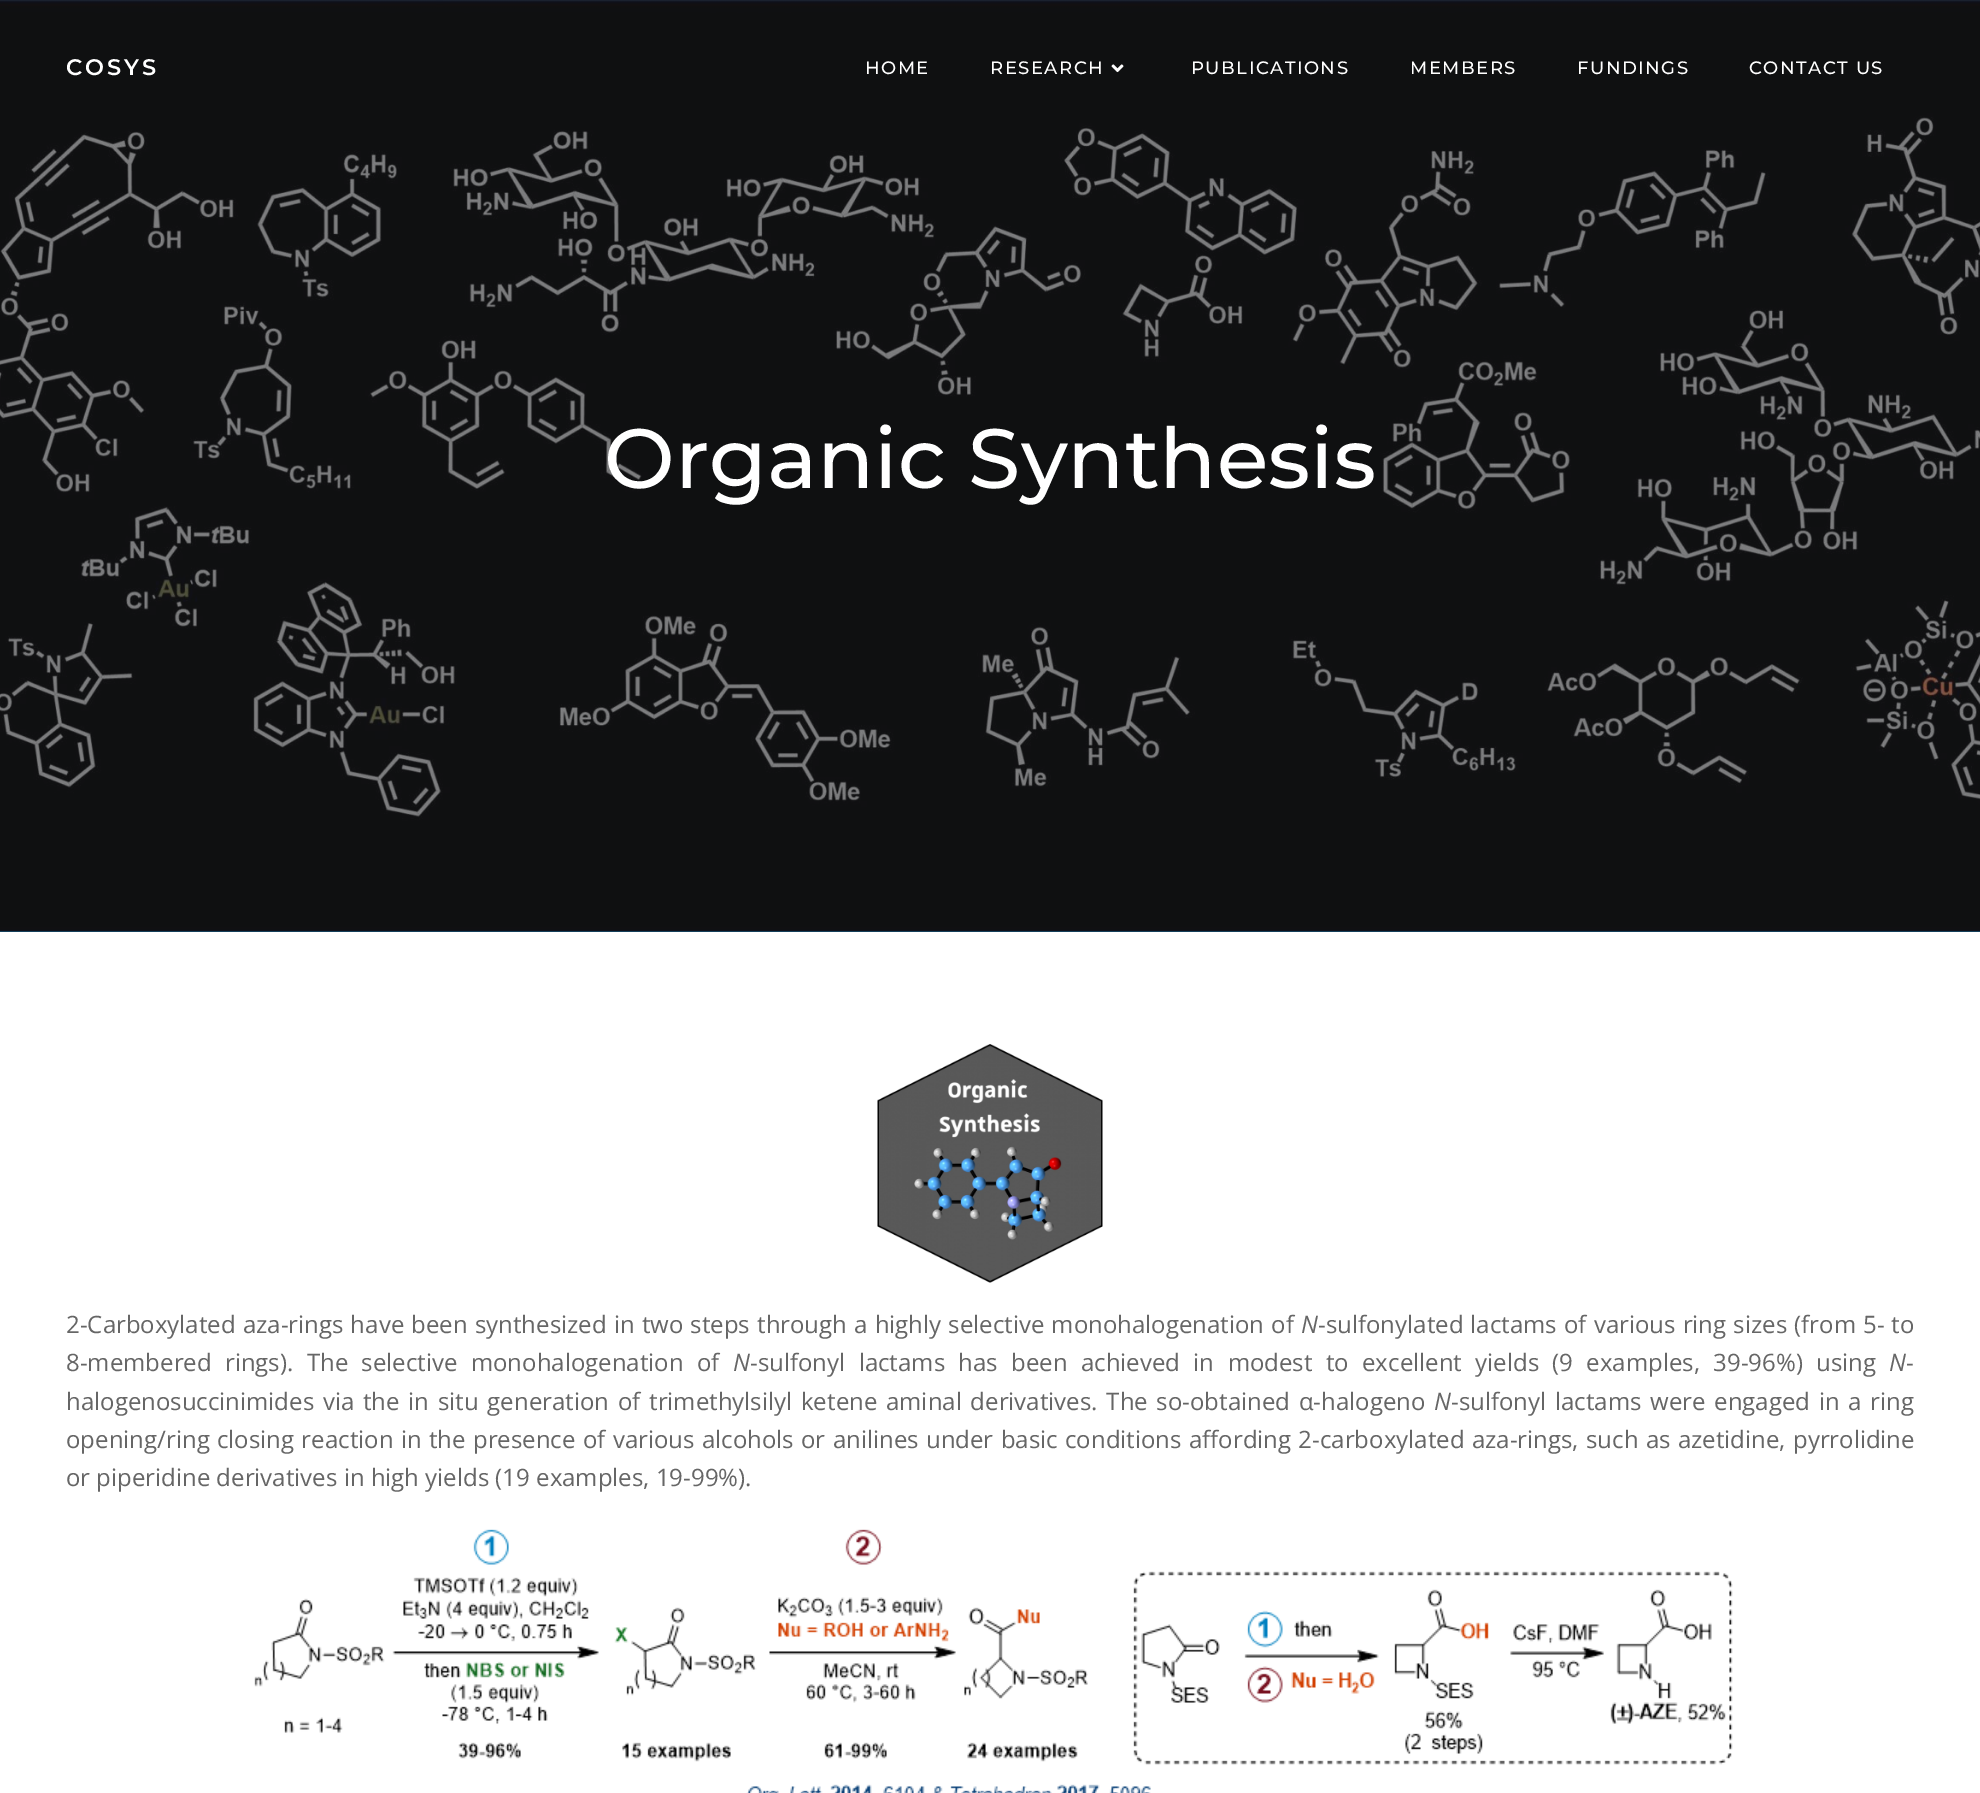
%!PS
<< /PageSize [1980 1793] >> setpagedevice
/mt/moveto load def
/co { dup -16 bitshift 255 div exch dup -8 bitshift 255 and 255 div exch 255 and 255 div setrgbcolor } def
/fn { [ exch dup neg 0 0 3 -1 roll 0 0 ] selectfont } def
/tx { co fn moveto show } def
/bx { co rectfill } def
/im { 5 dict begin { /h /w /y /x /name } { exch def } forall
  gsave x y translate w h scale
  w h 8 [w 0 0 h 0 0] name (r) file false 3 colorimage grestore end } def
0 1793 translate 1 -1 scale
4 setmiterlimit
0 0 1980 1793 16#FFFFFF bx
0 931 1980 1 16#11648B bx
(media/2.raw) 0 0 1980 932 im
(media/1.raw) 1111 64 13 9 im
(media/3.raw) 877 1044 226 239 im
(media/4.raw) 254 1529 1479 264 im
/Montserrat-SemiBold 22.5 fn
16#FFFFFF co
66 75 mt 3 0 (COSYS) ashow
/Montserrat-Medium 18 fn
865 74 mt 1.5 0 (HOME) ashow
990 74 mt 1.5 0 (RESEARCH) ashow
1191 74 mt 1.5 0 (PUBLICATIONS) ashow
1410 74 mt 1.5 0 (MEMBERS) ashow
1577 74 mt 1.5 0 (FUNDINGS) ashow
1749 74 mt 1.5 0 (CONTACT US) ashow
(Organic Synthesis) 604 488 /Montserrat-Medium 84 16#FFFFFF tx
/OpenSans-Regular 24 fn
16#666666 co
66 1333 mt .9 0 32 (2-Carboxylated aza-rings have been synthesized in two steps through a highly selective monohalogenation of) widthshow
(N) 1301 1333 /OpenSans-Italic 24 16#666666 tx
/OpenSans-Regular 24 fn
1318 1333 mt .9 0 32 (-sulfonylated lactams of various ring sizes \(from 5- to) widthshow
66 1371 mt 7.1 0 32 (8-membered rings\). The selective monohalogenation of) widthshow
(N) 733 1371 /OpenSans-Italic 24 16#666666 tx
/OpenSans-Regular 24 fn
750 1371 mt 7.1 0 32 (-sulfonyl lactams has been achieved in modest to excellent yields \(9 examples, 39-96%\) using) widthshow
(N) 1889 1371 /OpenSans-Italic 24 16#666666 tx
(-) 1906 1371 /OpenSans-Regular 24 16#666666 tx
66 1410 mt 2.5 0 32 (halogenosuccinimides via the in situ generation of trimethylsilyl ketene aminal derivatives. The so-obtained α-halogeno) widthshow
(N) 1434 1410 /OpenSans-Italic 24 16#666666 tx
/OpenSans-Regular 24 fn
1451 1410 mt 2.5 0 32 (-sulfonyl lactams were engaged in a ring) widthshow
66 1448 mt 1.1 0 32 (opening/ring closing reaction in the presence of various alcohols or anilines under basic conditions affording 2-carboxylated aza-rings, such as azetidine, pyrrolidine) widthshow
(or piperidine derivatives in high yields \(19 examples, 19-99%\).) 66 1486 /OpenSans-Regular 24 16#666666 tx
showpage
